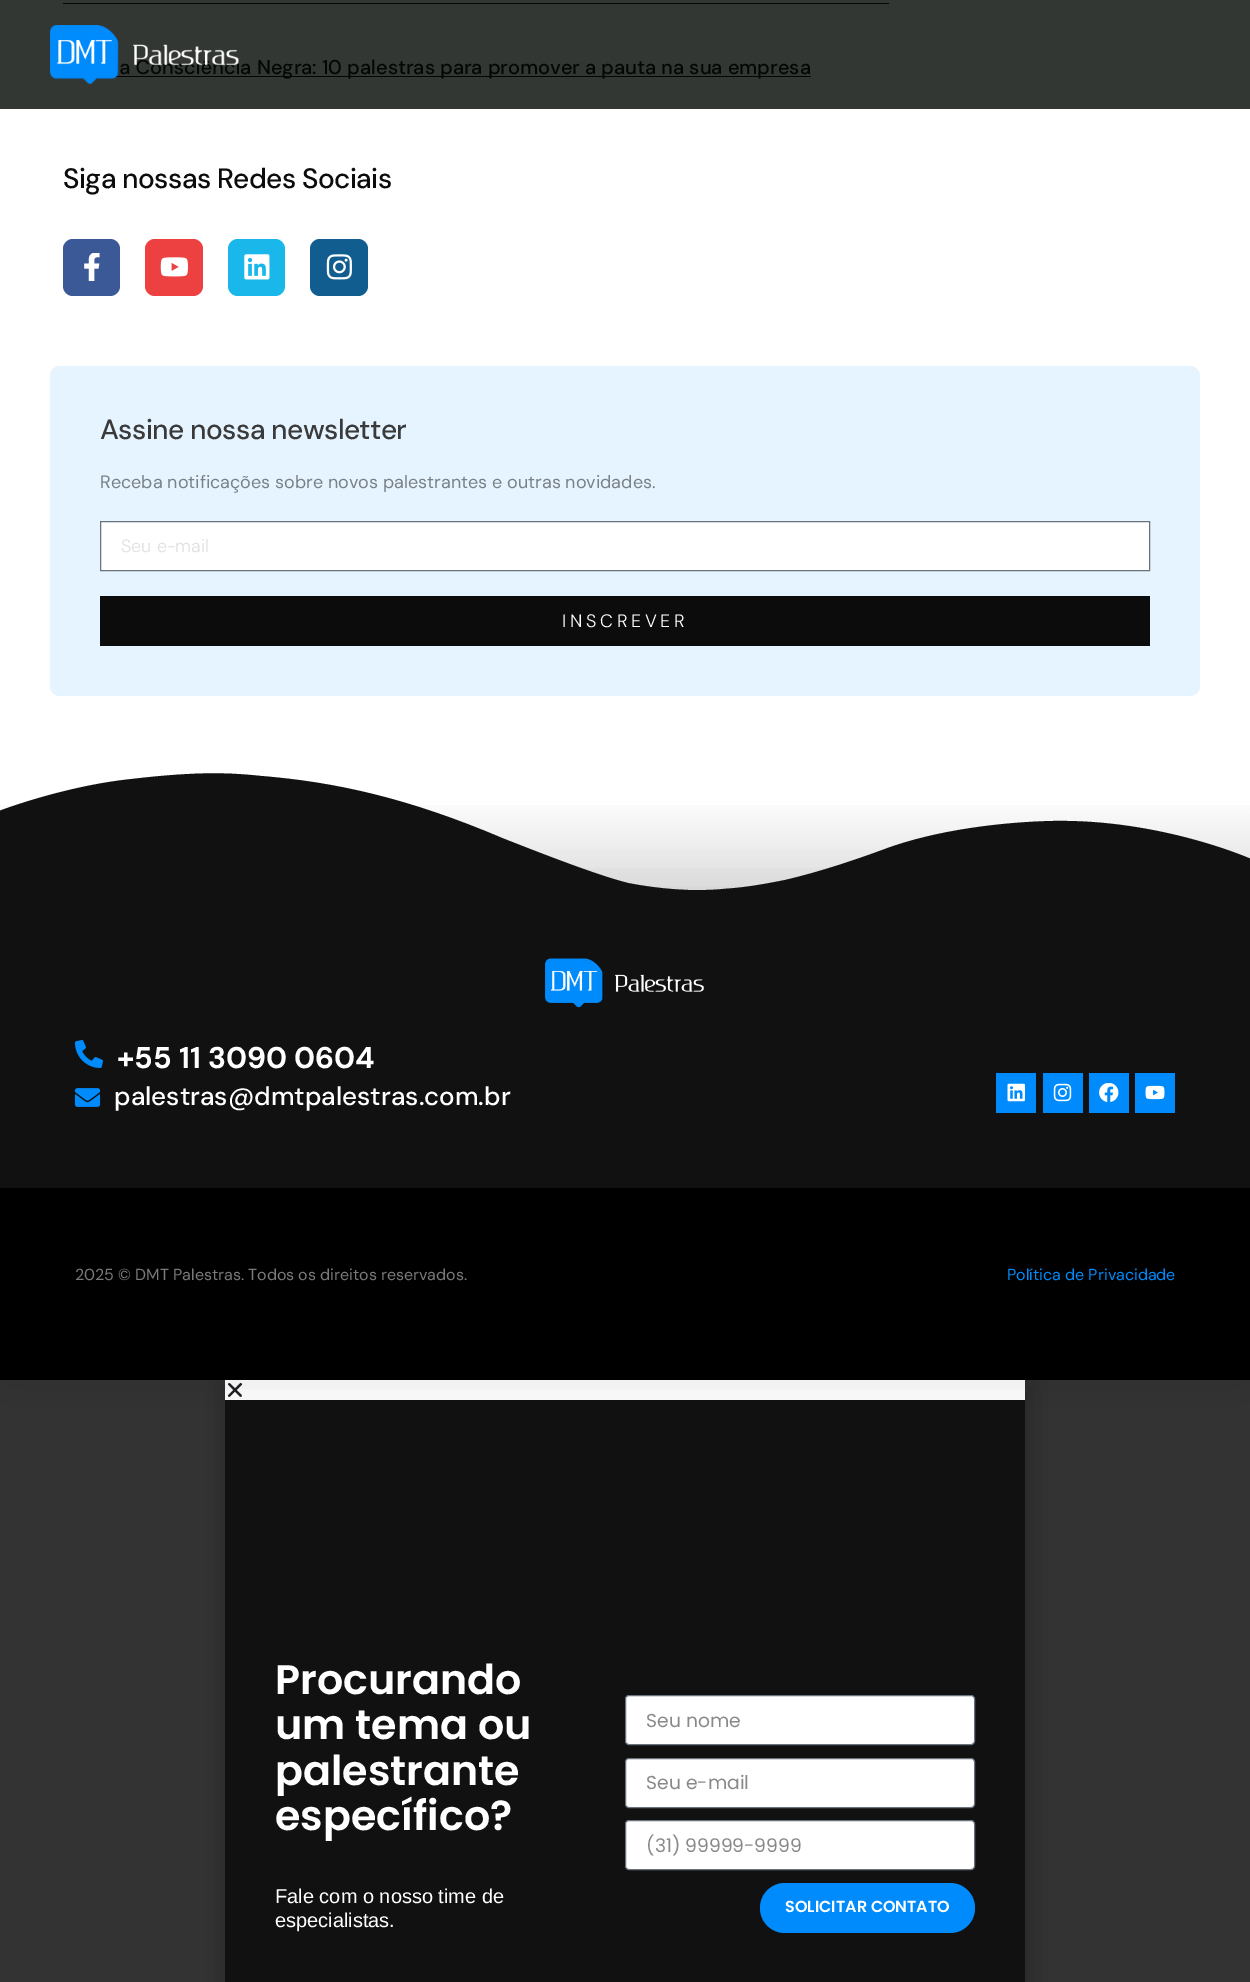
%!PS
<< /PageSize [1250 1982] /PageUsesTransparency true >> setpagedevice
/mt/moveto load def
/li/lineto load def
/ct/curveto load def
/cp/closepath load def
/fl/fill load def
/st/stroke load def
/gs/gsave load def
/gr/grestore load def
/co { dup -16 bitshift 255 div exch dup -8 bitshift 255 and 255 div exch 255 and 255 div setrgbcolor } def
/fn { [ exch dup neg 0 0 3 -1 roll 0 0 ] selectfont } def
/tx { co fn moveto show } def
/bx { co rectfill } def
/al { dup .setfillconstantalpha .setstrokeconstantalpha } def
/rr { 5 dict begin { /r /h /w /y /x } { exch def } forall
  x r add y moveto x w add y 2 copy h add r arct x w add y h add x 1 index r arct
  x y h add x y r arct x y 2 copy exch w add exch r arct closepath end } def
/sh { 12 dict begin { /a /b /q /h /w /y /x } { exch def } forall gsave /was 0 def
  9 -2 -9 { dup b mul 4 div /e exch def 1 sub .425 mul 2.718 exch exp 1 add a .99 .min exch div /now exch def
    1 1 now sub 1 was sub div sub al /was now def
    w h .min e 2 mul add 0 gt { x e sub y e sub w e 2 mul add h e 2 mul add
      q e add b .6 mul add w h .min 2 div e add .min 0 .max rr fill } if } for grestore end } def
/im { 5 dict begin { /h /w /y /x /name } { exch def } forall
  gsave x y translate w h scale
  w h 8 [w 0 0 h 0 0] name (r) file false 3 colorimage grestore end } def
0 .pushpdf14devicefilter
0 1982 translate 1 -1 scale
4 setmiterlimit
0 0 1250 1982 16#FFFFFF bx
0 0 1250 109 16#333733 bx
63 3 826 1 16#030703 bx
115 76 696 1 16#030703 bx
16#3B5997 co
63 239 57 57 10 rr fl
(media/2.raw) 84 253 16 28 im
16#ED4141 co
145 239 58 57 10 rr fl
(media/3.raw) 160 257 28 20 im
16#1AB7EA co
228 239 57 57 10 rr fl
(media/4.raw) 244 254 26 26 im
16#125D8F co
310 239 58 57 10 rr fl
(media/5.raw) 326 254 26 26 im
16#E6F4FF co
50 366 1150 330 10 rr fl
16#FFFFFF co
100.5 521.5 mt 1149.5 521.5 li 1149.5 570.5 li 100.5 570.5 li cp gs fl gr
16#69727D co
st
100 596 1050 50 16#0C0C0C bx
gs 0 805 mt 1250 805 li 1250 891 li 0 891 li cp clip newpath
<< /ShadingType 2 /ColorSpace /DeviceRGB /Coords [625 696 625 896] /Extend [true true] /Function << /FunctionType 3 /Domain [0 1] /Functions [<< /FunctionType 2 /Domain [0 1] /C0 [1 1 1] /C1 [1 1 1] /N 1 >> << /FunctionType 2 /Domain [0 1] /C0 [1 1 1] /C1 [.886 .886 .886] /N 1 >>] /Bounds [.5] /Encode [0 1 0 1] >> >> shfill gr
16#111111 co
723 889 mt 694 892 658 889 628 883 ct 599 876 540 853 502 838 ct 408 798 335 782 261 776 ct 232 773 200 771 132 779 ct 64 786 -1 811 -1 811 ct -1 897 li 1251 897 li 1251 859 li 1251 859 1161 819 1053 821 ct 1003 822 936 830 885 849 ct 858 859 820 872 785 880 ct 751 887 736 888 723 889 ct cp fl
16#000000 co
0 896 1250 292 0 37.5 .1 sh
0 897 1250 291 16#111111 bx
(media/6.raw) 545 958 159 50 im
(media/7.raw) 74 1040 29 28 im
(media/8.raw) 74 1088 27 19 im
996 1073 40 40 16#008BFD bx
(media/9.raw) 1007 1083 18 19 im
1043 1073 40 40 16#008BFD bx
(media/10.raw) 1053 1083 19 19 im
1089 1073 40 40 16#008BFD bx
(media/11.raw) 1099 1083 20 19 im
1135 1073 40 40 16#008BFD bx
(media/12.raw) 1145 1085 20 15 im
0 1380 1250 602 16#333333 bx
16#000000 co
224 1386 807 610 0 14.5 .2 sh
225 1380 800 20 16#FFFFFF bx
(media/13.raw) 227 1382 16 15 im
16#000000 co
0 1188 1250 192 0 37.5 .1 sh
0 1188 1250 192 16#000000 bx
225 1400 800 582 16#111111 bx
16#FFFFFF co
625.5 1695.5 349 49 3.5 rr gs fl gr
16#69727D co
st
16#FFFFFF co
625.5 1758.5 349 49 3.5 rr gs fl gr
16#69727D co
st
16#FFFFFF co
625.5 1820.5 349 49 3.5 rr gs fl gr
16#69727D co
st
16#008BFD co
760 1883 215 50 25 rr fl
(a Consciência Negra: 10 palestras para promover a pauta na sua empresa) 119 74 /DMSans-Medium 20 16#030703 tx
(media/1.raw) 50 25 189 59 im
/DMSans-Medium 28 fn
16#0C0C0C co
63 188 mt -.6 0 (Siga nossas Redes Sociais) ashow
16#3A3A3A co
100 439 mt -.6 0 (Assine nossa newsletter) ashow
(Receba notificações sobre novos palestrantes e outras novidades.) 100 488 /DMSans-Regular 18 16#798086 tx
(Seu e-mail) 121 552 /DMSans-Light 18 16#DFDFDF tx
16#FFFFFF co
562 627 mt 3.75 0 (INSCREVER) ashow
(+55 11 3090 0604) 117 1068 /DMSans-Bold 30 16#FFFFFF tx
(palestras@dmtpalestras.com.br) 114 1105 /DMSans-Medium 26 16#FFFFFF tx
(2025 © DMT Palestras. Todos os direitos reservados.) 75 1280 /DMSans-Regular 16 16#7A7A7A tx
(Política de Privacidade) 1007 1280 /DMSans-Regular 16 16#008BFD tx
(Procurando) 275 1694 /Poppins-SemiBold 41.25 16#FFFFFF tx
(um tema ou) 275 1739 /Poppins-SemiBold 41.25 16#FFFFFF tx
(palestrante) 275 1785 /Poppins-SemiBold 41.25 16#FFFFFF tx
(específico?) 275 1830 /Poppins-SemiBold 41.25 16#FFFFFF tx
(Fale com o nosso time de) 275 1903 /LiberationSans-Regular 20 16#FFFFFF tx
(especialistas.) 275 1927 /LiberationSans-Regular 20 16#FFFFFF tx
(Seu nome) 646 1727 /Poppins-Regular 18.75 16#898989 tx
(Seu e-mail) 646 1789 /Poppins-Regular 18.75 16#898989 tx
(\(31\) 99999-9999) 646 1852 /Poppins-Regular 18.75 16#898989 tx
(SOLICITAR CONTATO) 785 1912 /Poppins-SemiBold 16 16#FFFFFF tx
.poppdf14devicefilter showpage
